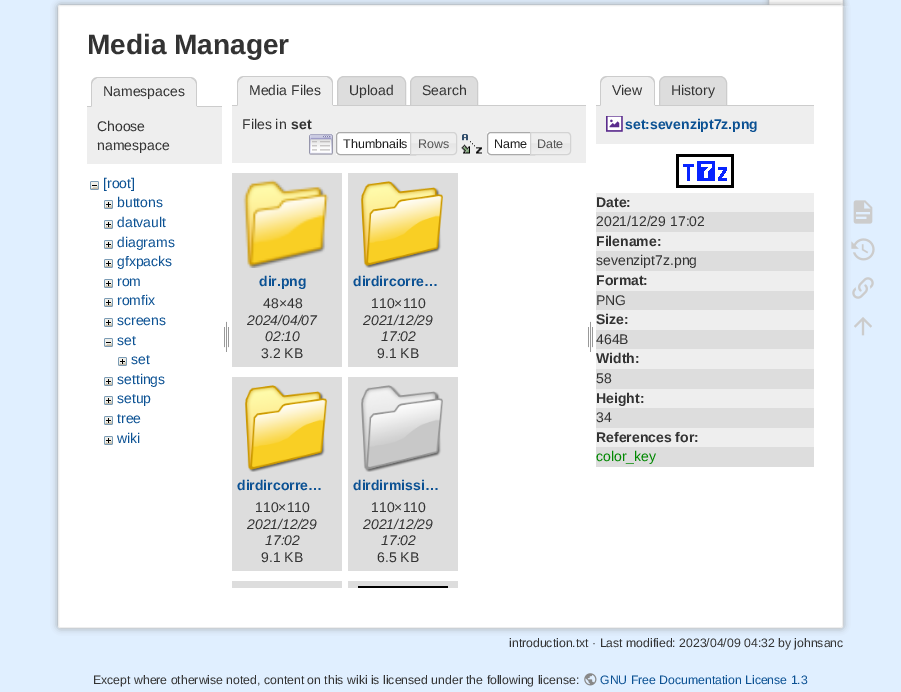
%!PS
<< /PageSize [901 692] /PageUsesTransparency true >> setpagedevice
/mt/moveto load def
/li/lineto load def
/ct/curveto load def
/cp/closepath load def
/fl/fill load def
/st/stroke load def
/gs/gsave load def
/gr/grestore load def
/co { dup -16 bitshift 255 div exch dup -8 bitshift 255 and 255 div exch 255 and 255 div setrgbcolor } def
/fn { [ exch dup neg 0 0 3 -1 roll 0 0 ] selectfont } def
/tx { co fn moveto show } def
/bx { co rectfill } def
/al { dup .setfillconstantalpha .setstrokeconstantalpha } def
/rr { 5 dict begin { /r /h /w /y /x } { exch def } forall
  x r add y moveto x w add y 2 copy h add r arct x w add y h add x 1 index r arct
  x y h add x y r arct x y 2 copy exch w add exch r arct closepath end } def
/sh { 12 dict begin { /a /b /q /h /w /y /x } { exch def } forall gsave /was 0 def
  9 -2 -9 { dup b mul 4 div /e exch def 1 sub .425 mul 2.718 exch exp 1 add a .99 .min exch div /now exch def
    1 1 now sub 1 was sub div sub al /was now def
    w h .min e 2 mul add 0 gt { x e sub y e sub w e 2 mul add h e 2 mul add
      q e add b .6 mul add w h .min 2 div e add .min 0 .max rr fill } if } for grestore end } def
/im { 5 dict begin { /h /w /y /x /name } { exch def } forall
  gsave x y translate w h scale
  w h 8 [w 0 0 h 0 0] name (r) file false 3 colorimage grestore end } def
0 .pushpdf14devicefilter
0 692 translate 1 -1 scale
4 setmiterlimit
0 0 901 692 16#E0EFFF bx
gs
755 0 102 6 rectclip
16#999999 co
769 -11 74 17 2 3 1 sh
gr
770 0 72 6 16#FFFFFF bx
842 0 1 6 16#EEEEEE bx
769 0 1 6 16#EEEEEE bx
16#999999 co
58 5 785 623 2 3.5 1 sh
16#FFFFFF co
58.5 5.5 784 622 1.5 rr gs fl gr
16#EEEEEE co
st
87 106 135 1 16#CCCCCC bx
16#EEEEEE co
98 77 mt 190 77 li 194 77 197 80 197 84 ct 197 107 li 91 107 li 91 84 li 91 80 94 77 98 77 ct cp fl
16#CCCCCC co
98 77 mt 96 77 94 78 93 79 ct 94 80 li 97 78 li 191 78 li 194 80 li 195 79 li 194 78 192 77 190 77 ct cp fl
197 107 mt 197 84 li 197 82 196 80 195 79 ct 194 80 li 195 81 196 82.5 196 84 ct 196 106 li cp fl
16#EEEEEE co
197 107 mt 196 106 li 92 106 li 91 107 li cp fl
16#CCCCCC co
91 107 mt 92 106 li 92 84 li 92 82.5 93 81 94 80 ct 93 79 li 92 80 91 82 91 84 ct cp fl
87 107 135 57 16#EEEEEE bx
(media/1.raw) 90 181 9 9 im
(media/2.raw) 104 200 9 9 im
(media/2.raw) 104 220 9 9 im
(media/2.raw) 104 240 9 9 im
(media/2.raw) 104 259 9 9 im
(media/2.raw) 104 279 9 9 im
(media/2.raw) 104 298 9 9 im
(media/2.raw) 104 318 9 9 im
(media/1.raw) 104 338 9 9 im
(media/2.raw) 118 357 9 9 im
(media/2.raw) 104 377 9 9 im
(media/2.raw) 104 396 9 9 im
(media/2.raw) 104 416 9 9 im
(media/2.raw) 104 436 9 9 im
(media/3.raw) 224 321 5 31 im
16#DDDDDD co
344 76.5 mt 399 76.5 li 402.5 76.5 405.5 79.5 405.5 83 ct 405.5 105.5 li 337.5 105.5 li 337.5 83 li 337.5 79.5 340.5 76.5 344 76.5 ct cp gs fl gr
16#CCCCCC co
st
16#DDDDDD co
417 76.5 mt 471 76.5 li 474.5 76.5 477.5 79.5 477.5 83 ct 477.5 105.5 li 410.5 105.5 li 410.5 83 li 410.5 79.5 413.5 76.5 417 76.5 ct cp gs fl gr
16#CCCCCC co
st
232 105 354 1 16#CCCCCC bx
16#EEEEEE co
244 76 mt 326 76 li 330 76 333 79 333 83 ct 333 106 li 237 106 li 237 83 li 237 79 240 76 244 76 ct cp fl
16#CCCCCC co
244 76 mt 242 76 240 77 239 78 ct 240 79 li 243 77 li 327 77 li 330 79 li 331 78 li 330 77 328 76 326 76 ct cp fl
333 106 mt 333 83 li 333 81 332 79 331 78 ct 330 79 li 331 80 332 81.5 332 83 ct 332 105 li cp fl
16#EEEEEE co
333 106 mt 332 105 li 238 105 li 237 106 li cp fl
16#CCCCCC co
237 106 mt 238 105 li 238 83 li 238 81.5 239 80 240 79 ct 239 78 li 238 79 237 81 237 83 ct cp fl
232 106 354 57 16#EEEEEE bx
(media/4.raw) 309 134 24 21 im
336 132 74 23 16#FFFFFF bx
16#AAAAAA co
340 132.5 mt 415.5 132.5 li 415.5 154.5 li 340 154.5 li 338 154.5 336.5 153 336.5 151 ct 336.5 136 li 336.5 134 338 132.5 340 132.5 ct cp st
(media/5.raw) 411 132 46 23 im
16#D3D3D3 co
410.5 132.5 mt 453 132.5 li 455 132.5 456.5 134 456.5 136 ct 456.5 151 li 456.5 153 455 154.5 453 154.5 ct 410.5 154.5 li cp st
(media/6.raw) 461 134 21 20 im
487 132 43 23 16#FFFFFF bx
16#AAAAAA co
491 132.5 mt 534.5 132.5 li 534.5 154.5 li 491 154.5 li 489 154.5 487.5 153 487.5 151 ct 487.5 136 li 487.5 134 489 132.5 491 132.5 ct cp st
(media/7.raw) 531 132 40 23 im
16#D3D3D3 co
530.5 132.5 mt 567 132.5 li 569 132.5 570.5 134 570.5 136 ct 570.5 151 li 570.5 153 569 154.5 567 154.5 ct 530.5 154.5 li cp st
232 173 110 194 16#DDDDDD bx
(media/8.raw) 243 179 86 89 im
348 173 110 194 16#DDDDDD bx
(media/9.raw) 360 181 83 87 im
232 377 110 194 16#DDDDDD bx
(media/10.raw) 244 385 84 87 im
348 377 110 194 16#DDDDDD bx
(media/11.raw) 361 385 82 87 im
232 581 110 7 16#DDDDDD bx
348 581 110 7 16#DDDDDD bx
358 586 90 2 16#000000 bx
(media/3.raw) 588 321 5 31 im
16#DDDDDD co
666 76.5 mt 720 76.5 li 723.5 76.5 726.5 79.5 726.5 83 ct 726.5 105.5 li 659.5 105.5 li 659.5 83 li 659.5 79.5 662.5 76.5 666 76.5 ct cp gs fl gr
16#CCCCCC co
st
596 105 218 1 16#CCCCCC bx
16#EEEEEE co
607 76 mt 648 76 li 652 76 655 79 655 83 ct 655 106 li 600 106 li 600 83 li 600 79 603 76 607 76 ct cp fl
16#CCCCCC co
607 76 mt 605 76 603 77 602 78 ct 603 79 li 604 78 606 77 607 77 ct 648 77 li 650 77 651 78 652 79 ct 653 78 li 652 77 650 76 648 76 ct cp fl
655 106 mt 655 83 li 655 81 654 79 653 78 ct 652 79 li 653 80 654 81.5 654 83 ct 654 105 li cp fl
16#EEEEEE co
655 106 mt 654 105 li 601 105 li 600 106 li cp fl
16#CCCCCC co
600 106 mt 601 105 li 601 83 li 601 81.5 602 80 603 79 ct 602 78 li 601 79 600 81 600 83 ct cp fl
596 106 218 38 16#EEEEEE bx
(media/12.raw) 606 116 17 16 im
(media/13.raw) 676 154 58 34 im
596 193 218 19 16#EEEEEE bx
596 212 218 20 16#DDDDDD bx
596 232 218 19 16#EEEEEE bx
596 251 218 20 16#DDDDDD bx
596 271 218 20 16#EEEEEE bx
596 291 218 19 16#DDDDDD bx
596 310 218 20 16#EEEEEE bx
596 330 218 19 16#DDDDDD bx
596 349 218 20 16#EEEEEE bx
596 369 218 20 16#DDDDDD bx
596 389 218 19 16#EEEEEE bx
596 408 218 20 16#DDDDDD bx
596 428 218 19 16#EEEEEE bx
596 447 218 20 16#DDDDDD bx
(media/14.raw) 853 200 20 24 im
(media/15.raw) 851 238 24 23 im
(media/16.raw) 852 277 22 22 im
(media/17.raw) 854 317 18 19 im
(media/18.raw) 584 673 13 13 im
(Media Manager) 87 54 /LiberationSans-Bold 28 16#333333 tx
(Namespaces) 103 96 /LiberationSans-Regular 14 16#333333 tx
(Choose) 97 131 /LiberationSans-Regular 14 16#333333 tx
(namespace) 97 150 /LiberationSans-Regular 14 16#333333 tx
([root]) 103 188 /LiberationSans-Regular 14 16#0B5193 tx
(buttons) 117 207 /LiberationSans-Regular 14 16#0B5193 tx
(datvault) 117 227 /LiberationSans-Regular 14 16#0B5193 tx
(diagrams) 117 247 /LiberationSans-Regular 14 16#0B5193 tx
(gfxpacks) 117 266 /LiberationSans-Regular 14 16#0B5193 tx
(rom) 117 286 /LiberationSans-Regular 14 16#0B5193 tx
(romfix) 117 305 /LiberationSans-Regular 14 16#0B5193 tx
(screens) 117 325 /LiberationSans-Regular 14 16#0B5193 tx
(set) 117 345 /LiberationSans-Regular 14 16#0B5193 tx
(set) 131 364 /LiberationSans-Regular 14 16#0B5193 tx
(settings) 117 384 /LiberationSans-Regular 14 16#0B5193 tx
(setup) 117 403 /LiberationSans-Regular 14 16#0B5193 tx
(tree) 117 423 /LiberationSans-Regular 14 16#0B5193 tx
(wiki) 117 443 /LiberationSans-Regular 14 16#0B5193 tx
(Media Files) 249 95 /LiberationSans-Regular 14 16#333333 tx
(Upload) 349 95 /LiberationSans-Regular 14 16#333333 tx
(Search) 422 95 /LiberationSans-Regular 14 16#333333 tx
(Files in) 242 129 /LiberationSans-Regular 14 16#333333 tx
(set) 291 129 /LiberationSans-Bold 14 16#333333 tx
(Thumbnails) 343 148 /LiberationSans-Regular 12.5 16#212121 tx
(Rows) 418 148 /LiberationSans-Regular 12.5 16#555555 tx
(Name) 494 148 /LiberationSans-Regular 12.5 16#212121 tx
(Date) 537 148 /LiberationSans-Regular 12.5 16#555555 tx
(dir.png) 259 286 /LiberationSans-Bold 14 16#0B5193 tx
(48×48) 263 308 /LiberationSans-Regular 14 16#333333 tx
(2024/04/07) 247 325 /LiberationSans-Italic 14 16#333333 tx
(02:10) 265 341 /LiberationSans-Italic 14 16#333333 tx
(3.2 KB) 261 358 /LiberationSans-Regular 14 16#333333 tx
(dirdircorre…) 353 286 /LiberationSans-Bold 14 16#0B5193 tx
(110×110) 371 308 /LiberationSans-Regular 14 16#333333 tx
(2021/12/29) 363 325 /LiberationSans-Italic 14 16#333333 tx
(17:02) 381 341 /LiberationSans-Italic 14 16#333333 tx
(9.1 KB) 377 358 /LiberationSans-Regular 14 16#333333 tx
(dirdircorre…) 237 490 /LiberationSans-Bold 14 16#0B5193 tx
(110×110) 255 512 /LiberationSans-Regular 14 16#333333 tx
(2021/12/29) 247 529 /LiberationSans-Italic 14 16#333333 tx
(17:02) 265 545 /LiberationSans-Italic 14 16#333333 tx
(9.1 KB) 261 562 /LiberationSans-Regular 14 16#333333 tx
(dirdirmissi…) 353 490 /LiberationSans-Bold 14 16#0B5193 tx
(110×110) 371 512 /LiberationSans-Regular 14 16#333333 tx
(2021/12/29) 363 529 /LiberationSans-Italic 14 16#333333 tx
(17:02) 381 545 /LiberationSans-Italic 14 16#333333 tx
(6.5 KB) 377 562 /LiberationSans-Regular 14 16#333333 tx
(View) 612 95 /LiberationSans-Regular 14 16#333333 tx
(History) 671 95 /LiberationSans-Regular 14 16#333333 tx
(set:sevenzipt7z.png) 625 129 /LiberationSans-Bold 14 16#0B5193 tx
(Date:) 596 207 /LiberationSans-Bold 14 16#333333 tx
(2021/12/29 17:02) 596 226 /LiberationSans-Regular 14 16#333333 tx
(Filename:) 596 246 /LiberationSans-Bold 14 16#333333 tx
(sevenzipt7z.png) 596 265 /LiberationSans-Regular 14 16#333333 tx
(Format:) 596 285 /LiberationSans-Bold 14 16#333333 tx
(PNG) 596 305 /LiberationSans-Regular 14 16#333333 tx
(Size:) 596 324 /LiberationSans-Bold 14 16#333333 tx
(464B) 596 344 /LiberationSans-Regular 14 16#333333 tx
(Width:) 596 363 /LiberationSans-Bold 14 16#333333 tx
(58) 596 383 /LiberationSans-Regular 14 16#333333 tx
(Height:) 596 403 /LiberationSans-Bold 14 16#333333 tx
(34) 596 422 /LiberationSans-Regular 14 16#333333 tx
(References for:) 596 442 /LiberationSans-Bold 14 16#333333 tx
(color_key) 596 461 /LiberationSans-Regular 14 16#008800 tx
(introduction.txt · Last modified: 2023/04/09 04:32 by johnsanc) 509 647 /LiberationSans-Regular 12.25 16#333333 tx
(Except where otherwise noted, content on this wiki is licensed under the following license:) 93 684 /LiberationSans-Regular 12.25 16#333333 tx
(GNU Free Documentation License 1.3) 600 684 /LiberationSans-Regular 12.25 16#0B5193 tx
.poppdf14devicefilter showpage
